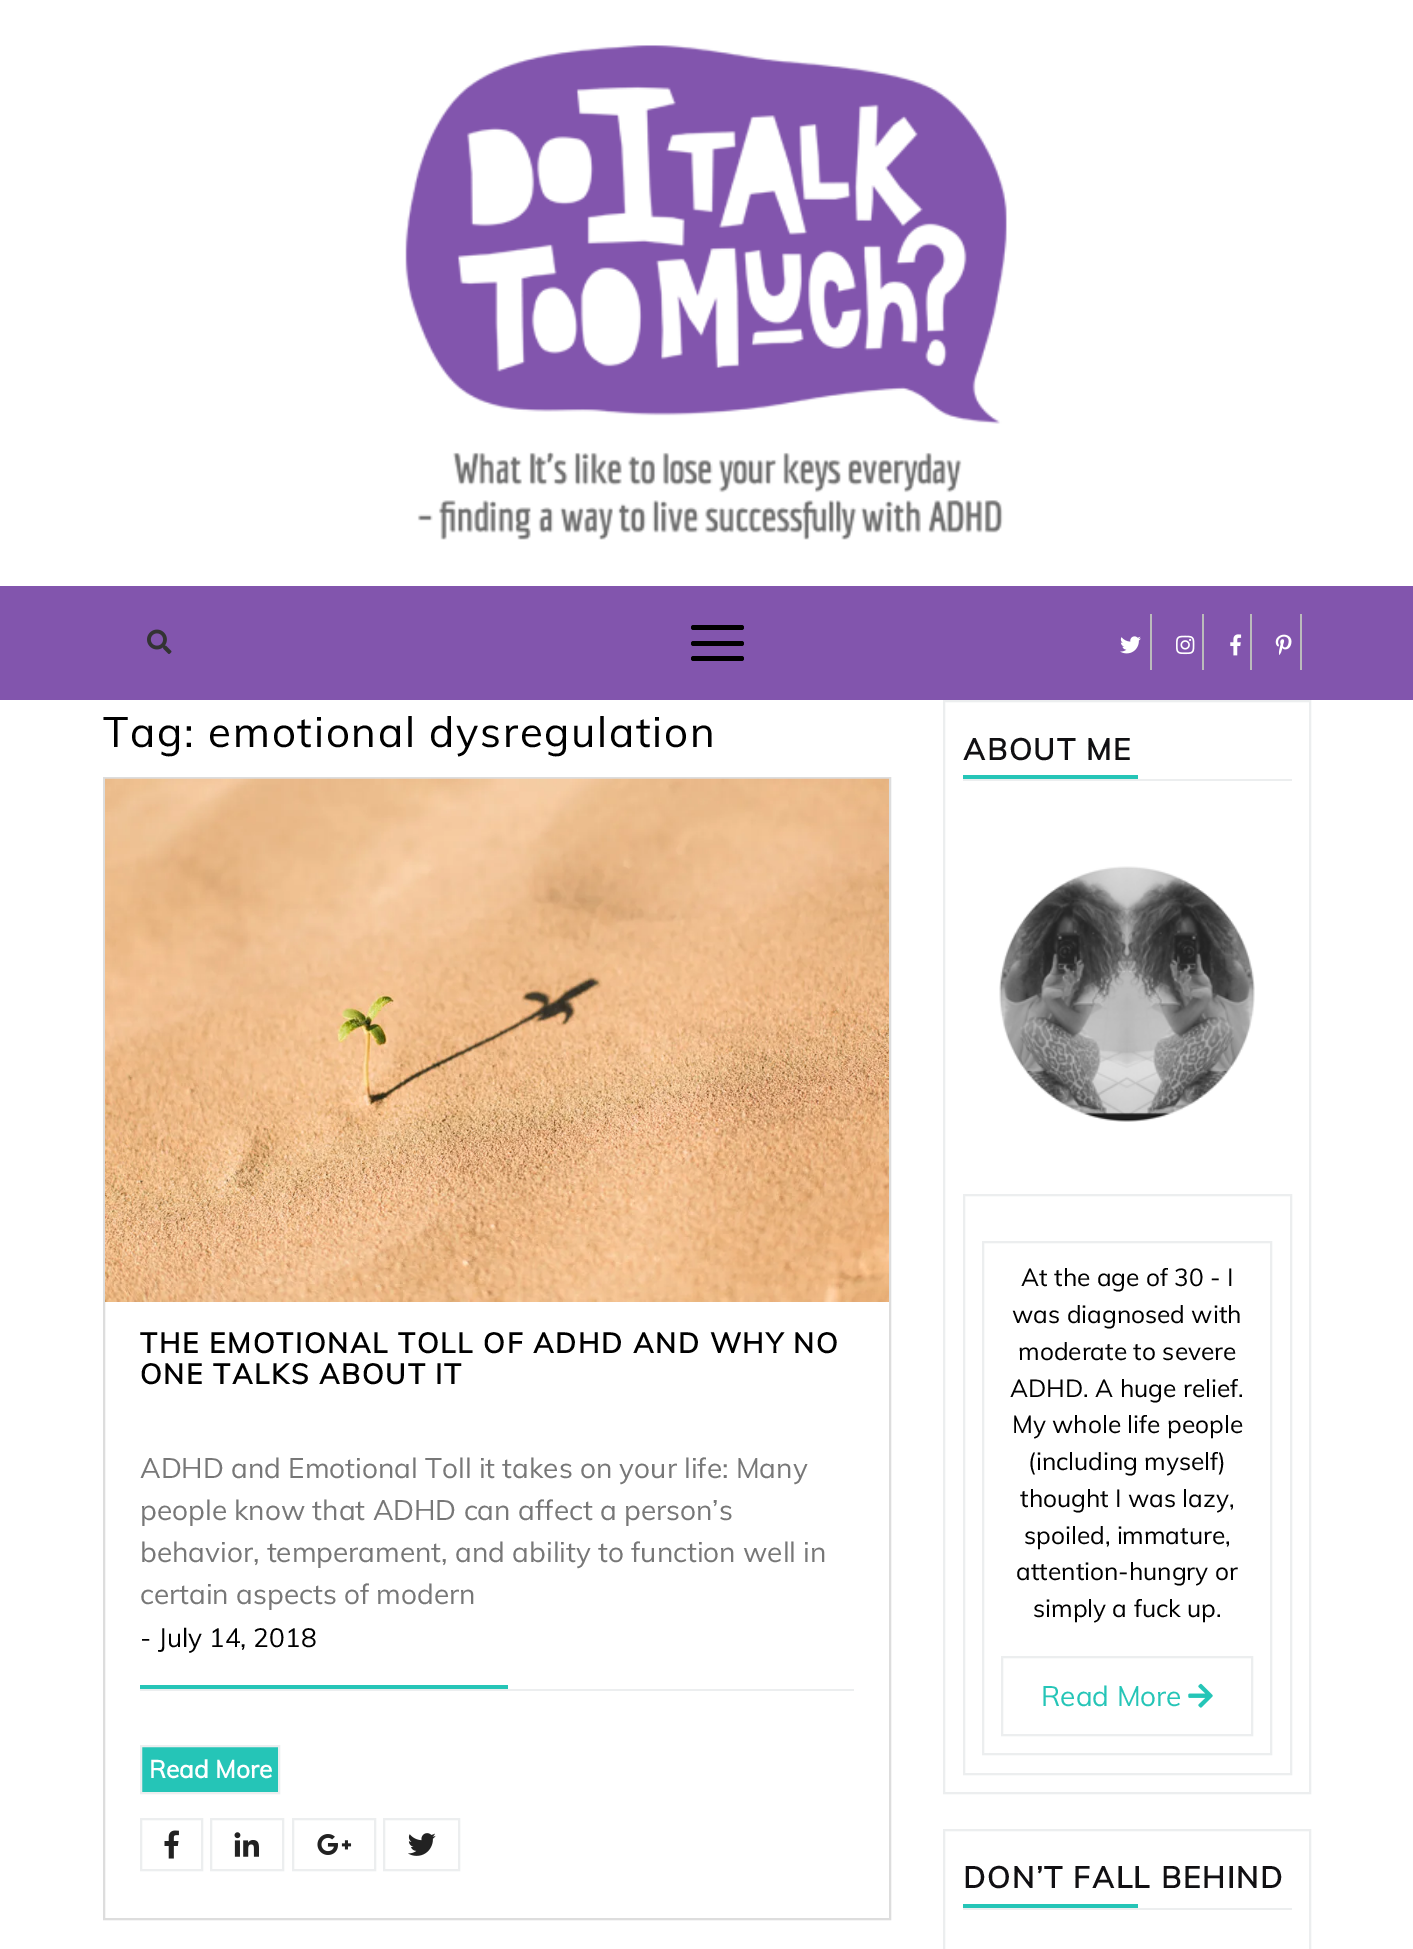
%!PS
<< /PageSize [1413 1949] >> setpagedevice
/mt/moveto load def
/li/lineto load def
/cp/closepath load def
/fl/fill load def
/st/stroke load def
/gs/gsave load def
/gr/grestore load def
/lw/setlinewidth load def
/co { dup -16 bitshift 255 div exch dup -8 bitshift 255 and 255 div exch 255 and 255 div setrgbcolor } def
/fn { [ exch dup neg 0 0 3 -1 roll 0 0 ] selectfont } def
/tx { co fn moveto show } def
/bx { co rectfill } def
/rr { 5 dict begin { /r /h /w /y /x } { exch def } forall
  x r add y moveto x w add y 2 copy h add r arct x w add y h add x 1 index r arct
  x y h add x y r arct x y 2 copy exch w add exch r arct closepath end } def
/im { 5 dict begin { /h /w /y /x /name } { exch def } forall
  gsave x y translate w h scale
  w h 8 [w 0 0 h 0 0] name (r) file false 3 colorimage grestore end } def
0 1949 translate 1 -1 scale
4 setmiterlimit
0 0 1413 1949 16#FFFFFF bx
(media/1.raw) 405 45 602 495 im
0 586 1413 114 16#8255AD bx
(media/2.raw) 147 629 25 25 im
16#000000 co
691 641 53 5 2.5 rr fl
691 625 53 5 2.5 rr fl
691 656 53 5 2.5 rr fl
1150 614 2 56 16#BBBBBB bx
(media/3.raw) 1120 636 21 18 im
1202 614 2 56 16#BBBBBB bx
(media/4.raw) 1176 635 19 20 im
1250 614 2 56 16#BBBBBB bx
(media/5.raw) 1230 634 12 22 im
1300 614 2 56 16#BBBBBB bx
(media/6.raw) 1275 634 17 21 im
16#DDDDDD co
2 lw
104 778 786 1141 rectstroke
(media/7.raw) 105 778 784 524 im
140 1689 714 2 16#ECEEEF bx
140 1685 368 4 16#25C5B7 bx
141 1746 mt 279 1746 li 279 1793 li 141 1793 li cp gs fl gr
16#ECEEEF co
st
141 1819 61 51 rectstroke
(media/8.raw) 164 1830 15 29 im
211 1819 72 51 rectstroke
(media/9.raw) 234 1832 25 25 im
293 1819 82 51 rectstroke
(media/10.raw) 317 1834 35 21 im
384 1819 75 51 rectstroke
(media/11.raw) 408 1833 28 23 im
944 701 366 1092 rectstroke
963 779 329 2 16#ECEEEF bx
963 775 175 4 16#25C5B7 bx
(media/12.raw) 999 866 256 256 im
16#ECEEEF co
964 1195 327 579 rectstroke
983 1242 288 512 rectstroke
1002 1657 250 78 rectstroke
(media/13.raw) 1188 1683 25 25 im
944 1830 366 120 rectstroke
963 1908 329 2 16#ECEEEF bx
963 1904 175 4 16#25C5B7 bx
/Muli-Regular 42 fn
16#000000 co
103 747 mt 1.75 0 (Tag: emotional dysregulation) ashow
/Muli-Bold 28 fn
140 1353 mt 1.75 0 (THE EMOTIONAL TOLL OF ADHD AND WHY NO) ashow
140 1384 mt 1.75 0 (ONE TALKS ABOUT IT) ashow
(ADHD and Emotional Toll it takes on your life: Many) 140 1478 /Muli-Regular 28 16#777777 tx
(people know that ADHD can affect a person’s) 140 1520 /Muli-Regular 28 16#777777 tx
(behavior, temperament, and ability to function well in) 140 1562 /Muli-Regular 28 16#777777 tx
(certain aspects of modern) 140 1604 /Muli-Regular 28 16#777777 tx
(- July 14, 2018) 140 1647 /Muli-Regular 26.25 16#000000 tx
(Read More) 149 1778 /Muli-Bold 24.5 16#FFFFFF tx
/Muli-Bold 29.75 fn
16#111013 co
963 760 mt 1.75 0 (ABOUT ME) ashow
(At the age of 30 - I) 1021 1286 /Muli-Regular 24.5 16#000000 tx
(was diagnosed with) 1012 1323 /Muli-Regular 24.5 16#000000 tx
(moderate to severe) 1018 1360 /Muli-Regular 24.5 16#000000 tx
(ADHD. A huge relief.) 1010 1397 /Muli-Regular 24.5 16#000000 tx
(My whole life people) 1012 1433 /Muli-Regular 24.5 16#000000 tx
(\(including myself\)) 1028 1470 /Muli-Regular 24.5 16#000000 tx
(thought I was lazy,) 1020 1507 /Muli-Regular 24.5 16#000000 tx
(spoiled, immature,) 1024 1544 /Muli-Regular 24.5 16#000000 tx
(attention-hungry or) 1016 1580 /Muli-Regular 24.5 16#000000 tx
(simply a fuck up.) 1033 1617 /Muli-Regular 24.5 16#000000 tx
(Read More) 1041 1706 /Muli-Regular 28 16#25C5B7 tx
/Muli-Bold 29.75 fn
16#111013 co
963 1888 mt 1.75 0 (DON’T FALL BEHIND) ashow
showpage
